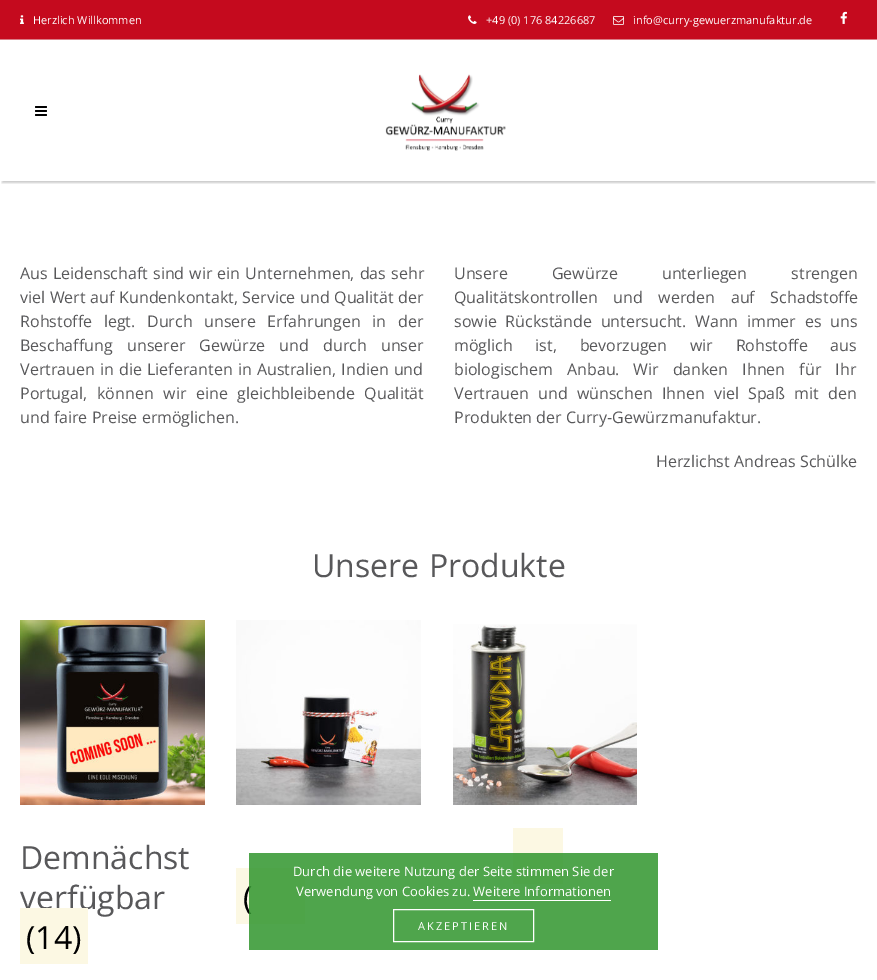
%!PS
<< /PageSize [877 980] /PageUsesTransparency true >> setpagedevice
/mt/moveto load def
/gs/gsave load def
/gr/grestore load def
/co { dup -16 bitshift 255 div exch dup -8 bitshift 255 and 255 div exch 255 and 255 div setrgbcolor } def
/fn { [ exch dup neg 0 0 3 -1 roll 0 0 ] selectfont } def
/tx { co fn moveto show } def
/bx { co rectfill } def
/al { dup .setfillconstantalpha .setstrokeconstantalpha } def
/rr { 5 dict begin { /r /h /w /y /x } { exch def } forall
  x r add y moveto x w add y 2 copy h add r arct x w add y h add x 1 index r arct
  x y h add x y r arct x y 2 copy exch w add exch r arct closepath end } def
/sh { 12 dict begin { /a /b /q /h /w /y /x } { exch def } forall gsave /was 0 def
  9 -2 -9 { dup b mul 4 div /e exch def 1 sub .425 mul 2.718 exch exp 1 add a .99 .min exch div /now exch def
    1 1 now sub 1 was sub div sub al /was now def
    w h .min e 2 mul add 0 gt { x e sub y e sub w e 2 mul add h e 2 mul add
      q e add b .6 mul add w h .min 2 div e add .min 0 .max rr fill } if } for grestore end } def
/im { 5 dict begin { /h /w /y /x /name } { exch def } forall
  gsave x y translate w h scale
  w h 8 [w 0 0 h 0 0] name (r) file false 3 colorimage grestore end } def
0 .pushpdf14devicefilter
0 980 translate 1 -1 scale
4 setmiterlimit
0 0 877 980 16#FFFFFF bx
gs
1 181 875 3 rectclip
16#000000 co
2 6 873 177 0 1 .2 sh
gr
0 0 877 39 16#C50A1E bx
(media/1.raw) 20 15 4 9 im
(media/2.raw) 468 15 9 9 im
(media/3.raw) 613 16 11 9 im
(media/4.raw) 840 11 7 13 im
0 39 877 1 16#DA7D87 bx
(media/5.raw) 35 106 12 10 im
(media/6.raw) 385 74 121 77 im
(media/7.raw) 453 624 184 181 im
513 828 50 56 16#FCF8E3 bx
(media/8.raw) 20 620 185 185 im
(media/9.raw) 236 620 185 185 im
236 868 69 56 16#FCF8E3 bx
(Herzlich Willkommen) 33 24 /OpenSans-Regular 11 16#FFFFFF tx
(+49 \(0\) 176 84226687) 486 24 /OpenSans-Regular 11 16#FFFFFF tx
(info@curry-gewuerzmanufaktur.de) 633 24 /OpenSans-Regular 11 16#FFFFFF tx
/OpenSans-Regular 16 fn
16#58585A co
20 279 mt 1 0 32 (Aus Leidenschaft sind wir ein Unternehmen, das sehr) widthshow
20 303 mt .5 0 32 (viel Wert auf Kundenkontakt, Service und Qualität der) widthshow
20 327 mt 7.5 0 32 (Rohstoffe legt. Durch unsere Erfahrungen in der) widthshow
(Beschaffung) 20 351 /OpenSans-Regular 16 16#58585A tx
127 351 mt 10 0 32 (unserer Gewürze und durch unser) widthshow
20 375 mt 1 0 32 (Vertrauen in die Lieferanten in Australien, Indien und) widthshow
(Portugal,) 20 399 /OpenSans-Regular 16 16#58585A tx
97 399 mt 5.5 0 32 (können wir eine gleichbleibende Qualität) widthshow
(und faire Preise ermöglichen.) 20 423 /OpenSans-Regular 16 16#58585A tx
454 279 mt 40 0 32 (Unsere Gewürze unterliegen strengen) widthshow
454 303 mt 11.5 0 32 (Qualitätskontrollen und werden auf Schadstoffe) widthshow
454 327 mt 4.5 0 32 (sowie Rückstände untersucht. Wann immer es uns) widthshow
454 351 mt 18.5 0 32 (möglich ist, bevorzugen wir Rohstoffe aus) widthshow
454 375 mt 10 0 32 (biologischem Anbau.) widthshow
633 375 mt 10 0 32 (Wir danken Ihnen für Ihr) widthshow
454 399 mt 5 0 32 (Vertrauen und wünschen Ihnen viel Spaß mit den) widthshow
(Produkten der Curry-Gewürzmanufaktur.) 454 423 /OpenSans-Regular 16 16#58585A tx
(Herzlichst Andreas Schülke) 656 467 /OpenSans-Regular 16 16#58585A tx
/OpenSans-Regular 32 fn
312 577 mt 1 0 32 (Unsere Produkte) widthshow
(Demnächst) 20 869 /OpenSans-Regular 32 16#58585A tx
(verfügbar) 20 909 /OpenSans-Regular 32 16#58585A tx
20 908 68 56 16#FCF8E3 bx
(\(14\)) 26 949 /OpenSans-Regular 32 16#000000 tx
(\() 243 909 /OpenSans-Regular 32 16#000000 tx
0.85 al
249 853 409 97 16#30952D bx
1 al
(Durch die weitere Nutzung der Seite stimmen Sie der) 293 876 /OpenSans-Regular 13 16#FFFFFF tx
(Verwendung von Cookies zu. Weitere Informationen) 296 896 /OpenSans-Regular 13 16#FFFFFF tx
473 900 138 1 16#FFFFFF bx
393.5 909.5 140 32 rectstroke
/OpenSans-Regular 11 fn
418 930 mt 2 0 (AKZEPTIEREN) ashow
.poppdf14devicefilter showpage
